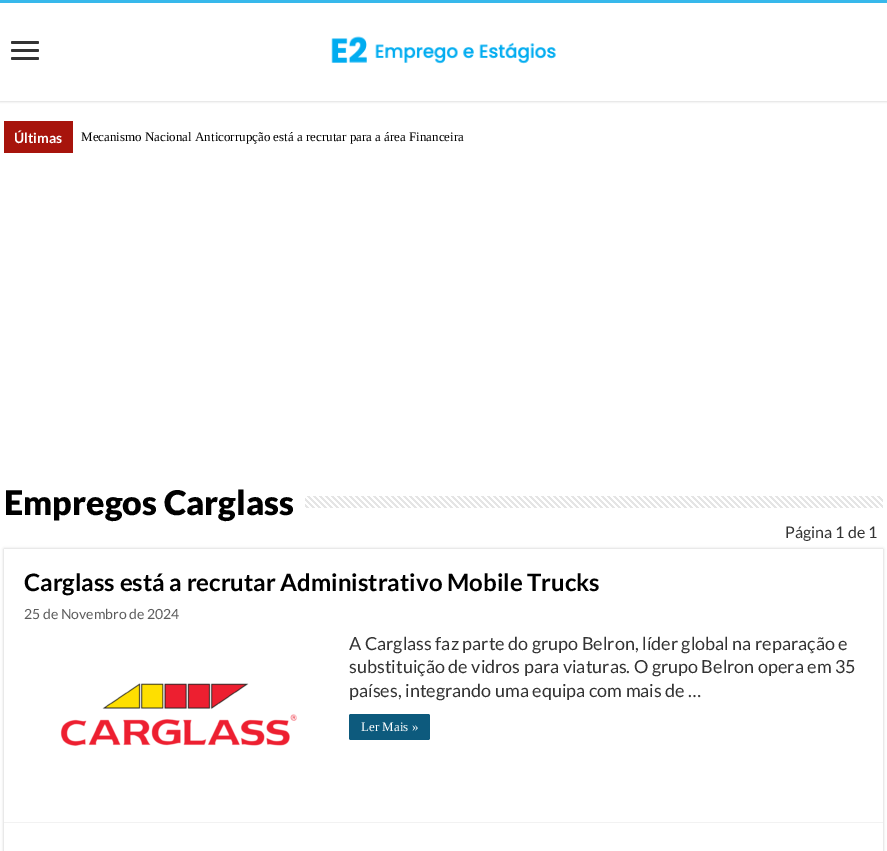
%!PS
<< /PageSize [887 851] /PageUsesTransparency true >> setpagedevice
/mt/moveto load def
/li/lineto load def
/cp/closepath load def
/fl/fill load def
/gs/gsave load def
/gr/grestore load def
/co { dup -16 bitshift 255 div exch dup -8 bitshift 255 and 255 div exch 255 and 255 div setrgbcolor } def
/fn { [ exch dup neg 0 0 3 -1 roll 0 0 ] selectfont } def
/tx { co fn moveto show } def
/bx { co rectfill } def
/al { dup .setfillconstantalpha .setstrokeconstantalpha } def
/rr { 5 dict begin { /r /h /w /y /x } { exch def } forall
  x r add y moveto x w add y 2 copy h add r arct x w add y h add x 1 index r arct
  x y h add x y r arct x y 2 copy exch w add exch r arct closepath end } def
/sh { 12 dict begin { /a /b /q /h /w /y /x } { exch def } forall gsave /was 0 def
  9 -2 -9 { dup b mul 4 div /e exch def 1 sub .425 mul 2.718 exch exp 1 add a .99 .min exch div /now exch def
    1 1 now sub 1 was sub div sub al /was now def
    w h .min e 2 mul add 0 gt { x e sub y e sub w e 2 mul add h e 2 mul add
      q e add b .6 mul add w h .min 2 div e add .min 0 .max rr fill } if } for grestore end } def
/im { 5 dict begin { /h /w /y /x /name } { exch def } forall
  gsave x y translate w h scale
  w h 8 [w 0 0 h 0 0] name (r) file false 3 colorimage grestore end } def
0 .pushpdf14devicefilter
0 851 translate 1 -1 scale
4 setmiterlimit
0 0 887 851 16#FFFFFF bx
gs
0 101 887 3 rectclip
16#CACACA co
0 0 887 101 0 1.5 1 sh
gr
0 0 887 3 16#37B8EB bx
16#333333 co
11 41 28 3 1.5 rr fl
11 49 28 3 1.5 rr fl
11 57 28 3 1.5 rr fl
(media/1.raw) 331 36 225 28 im
4 121 69 32 16#A7140C bx
(media/2.raw) 305 496 578 12 im
gs
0 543 mt 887 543 li 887 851 li 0 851 li cp 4 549 mt 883 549 li 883 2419 li 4 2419 li cp eoclip newpath
16#CACACA co
4 549 879 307 0 1.5 1 sh
gr
4 822 879 1 16#F2F2F2 bx
(media/3.raw) 60 683 237 63 im
16#0D5A7D co
349 714 81 26 2 rr fl
(Últimas) 14 143 /Lato-Bold 14 16#FFFFFF tx
(Mecanismo Nacional Anticorrupção está a recrutar para a área Financeira) 81 141 /LiberationSerif-Regular 13 16#000000 tx
(Empregos Carglass) 4 515 /Lato-Black 34 16#000000 tx
(Página 1 de 1) 785 538 /Lato-Regular 16 16#333333 tx
(Carglass está a recrutar Administrativo Mobile Trucks) 24 591 /Lato-Bold 24 16#000000 tx
(25 de Novembro de 2024) 24 619 /Lato-Regular 14 16#5C5C5C tx
(A Carglass faz parte do grupo Belron, líder global na reparação e) 349 650 /Lato-Regular 18 16#333333 tx
(substituição de vidros para viaturas. O grupo Belron opera em 35) 349 673 /Lato-Regular 18 16#333333 tx
(países, integrando uma equipa com mais de …) 349 697 /Lato-Regular 18 16#333333 tx
(Ler Mais ») 361 731 /LiberationSerif-Regular 13 16#FFFFFF tx
.poppdf14devicefilter showpage
